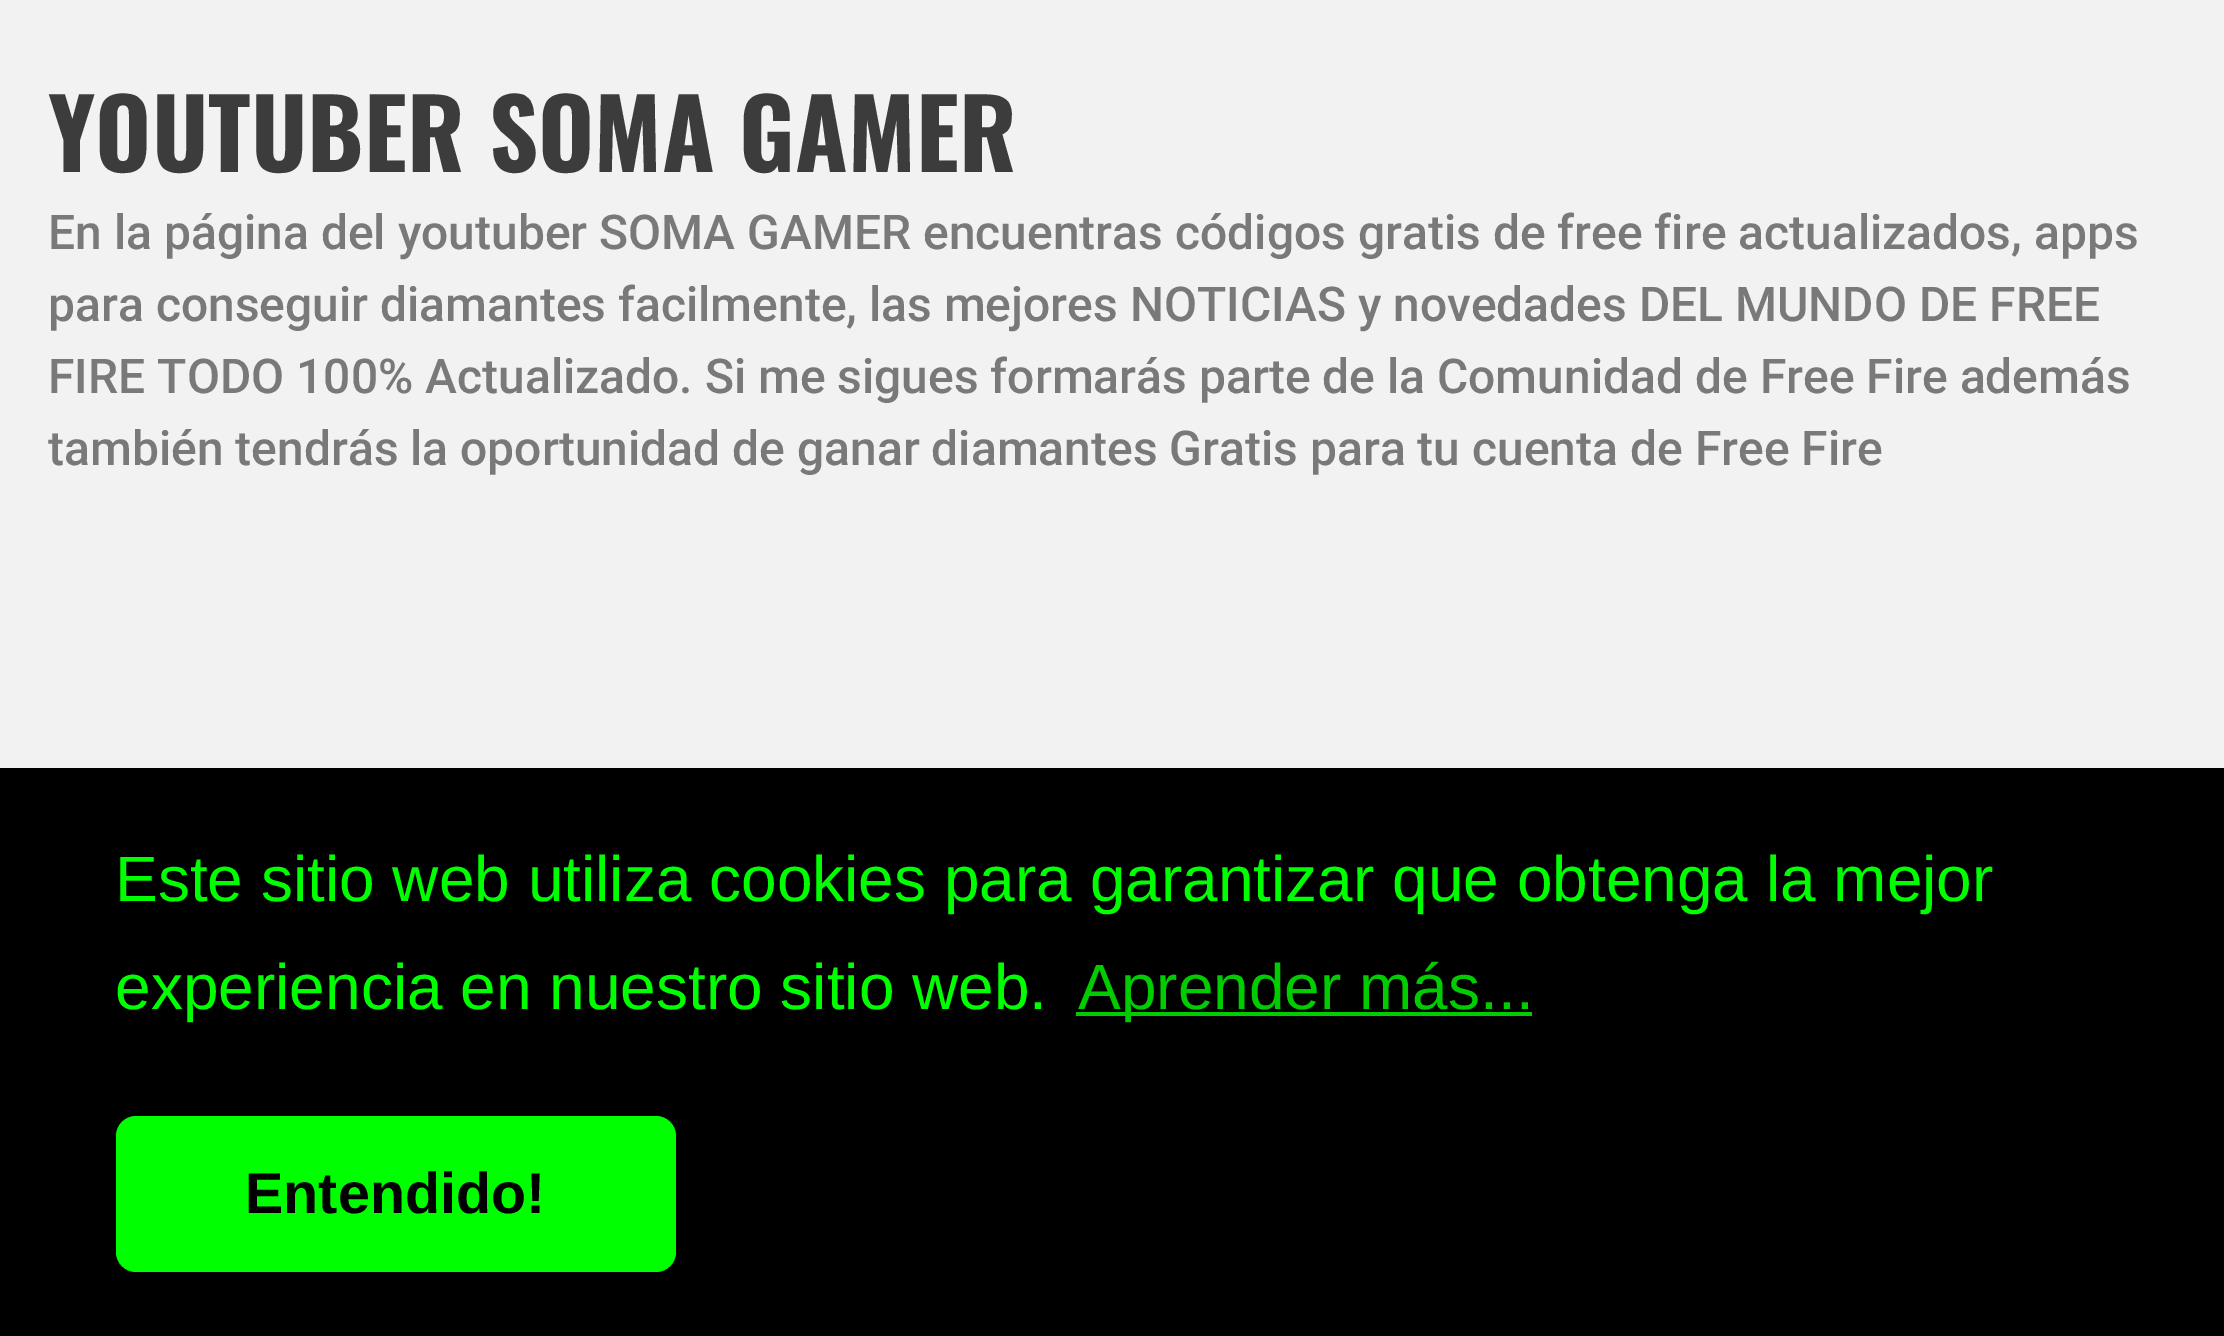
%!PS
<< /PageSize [2224 1336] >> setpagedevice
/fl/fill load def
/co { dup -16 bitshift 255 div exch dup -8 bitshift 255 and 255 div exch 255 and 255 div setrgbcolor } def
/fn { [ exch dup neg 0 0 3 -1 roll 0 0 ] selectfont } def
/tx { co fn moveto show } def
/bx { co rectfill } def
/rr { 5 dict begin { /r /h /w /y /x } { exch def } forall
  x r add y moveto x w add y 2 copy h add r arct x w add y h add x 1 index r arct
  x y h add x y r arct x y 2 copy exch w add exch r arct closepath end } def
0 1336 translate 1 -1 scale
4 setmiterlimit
0 0 2224 1336 16#F2F2F2 bx
0 768 2224 568 16#000000 bx
1076 1012 456 4 16#00CC00 bx
16#00FF00 co
116 1116 560 156 20 rr fl
(YOUTUBER SOMA GAMER) 48 172 /Oswald-Bold 96 16#3C3C3C tx
(En la página del youtuber SOMA GAMER encuentras códigos gratis de free fire actualizados, apps) 48 249 /Roboto-Medium 48 16#797979 tx
(para conseguir diamantes facilmente, las mejores NOTICIAS y novedades DEL MUNDO DE FREE) 48 321 /Roboto-Medium 48 16#797979 tx
(FIRE TODO 100% Actualizado. Si me sigues formarás parte de la Comunidad de Free Fire además) 48 393 /Roboto-Medium 48 16#797979 tx
(también tendrás la oportunidad de ganar diamantes Gratis para tu cuenta de Free Fire) 48 465 /Roboto-Medium 48 16#797979 tx
(Este sitio web utiliza cookies para garantizar que obtenga la mejor) 115 901 /LiberationSans-Regular 64 16#00FF00 tx
(experiencia en nuestro sitio web.) 115 1009 /LiberationSans-Regular 64 16#00FF00 tx
(Aprender más...) 1078 1009 /LiberationSans-Regular 64 16#00CC00 tx
(Entendido!) 245 1213 /LiberationSans-Bold 57.5 16#000000 tx
showpage
